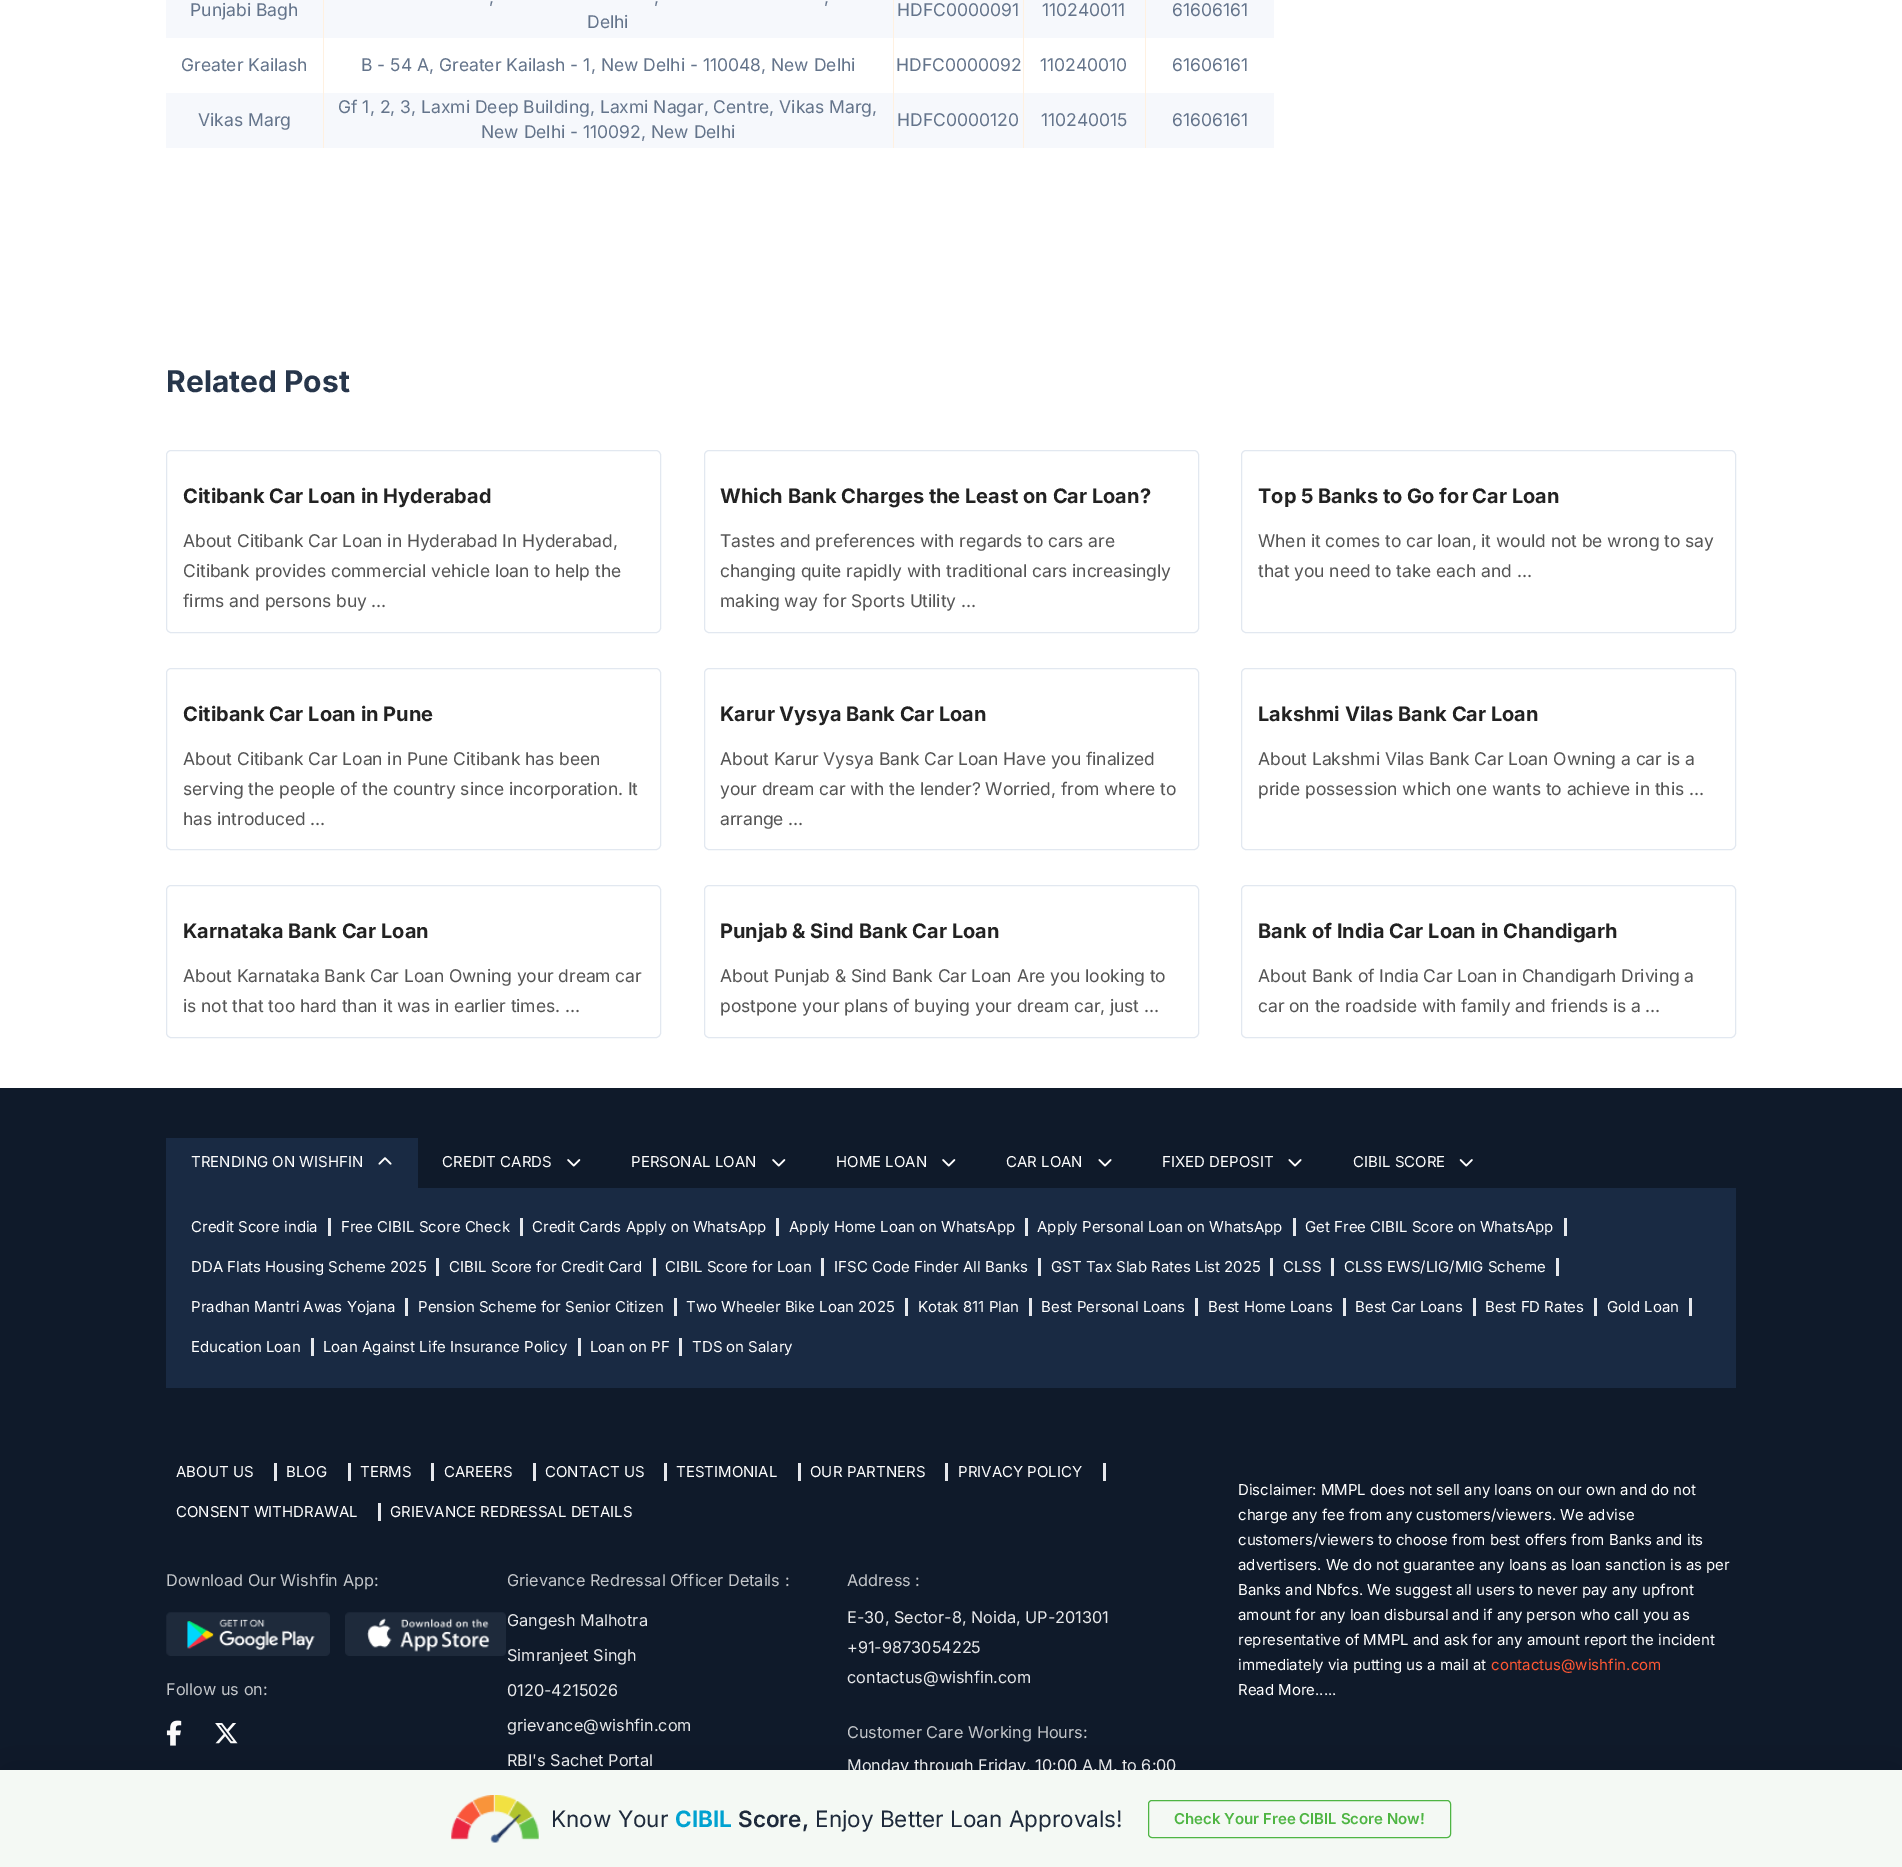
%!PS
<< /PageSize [1902 1867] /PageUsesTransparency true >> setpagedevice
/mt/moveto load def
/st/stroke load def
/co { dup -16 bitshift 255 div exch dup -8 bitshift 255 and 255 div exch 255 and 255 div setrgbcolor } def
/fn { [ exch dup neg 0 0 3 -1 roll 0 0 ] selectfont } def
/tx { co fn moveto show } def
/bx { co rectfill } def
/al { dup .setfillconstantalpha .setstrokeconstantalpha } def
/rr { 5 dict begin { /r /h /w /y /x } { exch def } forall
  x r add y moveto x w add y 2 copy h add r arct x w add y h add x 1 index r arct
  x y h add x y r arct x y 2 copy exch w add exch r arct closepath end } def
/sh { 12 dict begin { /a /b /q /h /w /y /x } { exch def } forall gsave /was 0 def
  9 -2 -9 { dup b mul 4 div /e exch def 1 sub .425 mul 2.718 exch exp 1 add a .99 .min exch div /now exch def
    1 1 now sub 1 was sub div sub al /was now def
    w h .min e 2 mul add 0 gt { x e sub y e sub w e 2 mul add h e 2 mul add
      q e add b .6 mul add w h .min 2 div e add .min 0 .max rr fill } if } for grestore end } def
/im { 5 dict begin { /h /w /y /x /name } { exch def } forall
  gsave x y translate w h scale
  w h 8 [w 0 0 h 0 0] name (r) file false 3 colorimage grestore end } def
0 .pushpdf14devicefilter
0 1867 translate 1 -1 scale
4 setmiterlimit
0 0 1902 1867 16#FFFFFF bx
166 0 1108 38 16#F6F8FC bx
166 93 1108 55 16#F6F8FC bx
323 0 1 148 16#FFF1E1 bx
893 0 1 148 16#FFF1E1 bx
1023 0 1 148 16#FFF1E1 bx
1145 0 1 148 16#FFF1E1 bx
16#E2E8F0 co
166.5 450.5 494 182 4.5 rr st
704.5 450.5 494 182 4.5 rr st
1241.5 450.5 494 182 4.5 rr st
166.5 668.5 494 181 4.5 rr st
704.5 668.5 494 181 4.5 rr st
1241.5 668.5 494 181 4.5 rr st
166.5 885.5 494 152 4.5 rr st
704.5 885.5 494 152 4.5 rr st
1241.5 885.5 494 152 4.5 rr st
0 1088 1902 682 16#0F1A2A bx
166 1138 252 50 16#192A43 bx
(media/1.raw) 378 1157 14 8 im
(media/2.raw) 567 1159 14 8 im
(media/2.raw) 772 1159 14 8 im
(media/2.raw) 942 1159 14 8 im
(media/3.raw) 1098 1159 14 8 im
(media/3.raw) 1288 1159 14 8 im
(media/4.raw) 1459 1159 14 8 im
166 1188 1570 200 16#192A43 bx
328 1218 3 18 16#E5E7EB bx
520 1218 3 18 16#E5E7EB bx
776 1218 3 18 16#E5E7EB bx
1025 1218 3 18 16#E5E7EB bx
1293 1218 3 18 16#E5E7EB bx
1564 1218 3 18 16#E5E7EB bx
436 1258 3 18 16#E5E7EB bx
653 1258 3 18 16#E5E7EB bx
821 1258 3 18 16#E5E7EB bx
1038 1258 3 18 16#E5E7EB bx
1270 1258 3 18 16#E5E7EB bx
1331 1258 3 18 16#E5E7EB bx
1556 1258 3 18 16#E5E7EB bx
405 1298 3 18 16#E5E7EB bx
674 1298 3 18 16#E5E7EB bx
905 1298 3 18 16#E5E7EB bx
1029 1298 3 18 16#E5E7EB bx
1195 1298 3 18 16#E5E7EB bx
1343 1298 3 18 16#E5E7EB bx
1473 1298 3 18 16#E5E7EB bx
1594 1298 3 18 16#E5E7EB bx
1689 1298 3 18 16#E5E7EB bx
311 1338 3 18 16#E5E7EB bx
578 1338 3 18 16#E5E7EB bx
679 1338 3 18 16#E5E7EB bx
274 1463 3 18 16#E5E7EB bx
348 1463 3 18 16#E5E7EB bx
431 1463 3 18 16#E5E7EB bx
533 1463 3 18 16#E5E7EB bx
664 1463 3 18 16#E5E7EB bx
798 1463 3 18 16#E5E7EB bx
945 1463 3 18 16#E5E7EB bx
1103 1463 3 18 16#E5E7EB bx
378 1503 3 18 16#E5E7EB bx
(media/5.raw) 166 1612 164 44 im
(media/6.raw) 345 1612 161 44 im
(media/7.raw) 166 1720 16 26 im
(media/8.raw) 215 1723 23 21 im
16#000000 co
0 1768 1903 97 0 30.5 .16 sh
(Punjabi Bagh) 190 16 /Inter-Regular 17.5 16#64748B tx
(,) 489 3 /Inter-Regular 17.5 16#64748B tx
(,) 654 3 /Inter-Regular 17.5 16#64748B tx
(,) 824 3 /Inter-Regular 17.5 16#64748B tx
(Delhi) 587 28 /Inter-Regular 17.5 16#64748B tx
(HDFC0000091) 897 16 /Inter-Regular 17.5 16#64748B tx
(110240011) 1042 16 /Inter-Regular 17.5 16#64748B tx
(61606161) 1172 16 /Inter-Regular 17.5 16#64748B tx
(Greater Kailash) 181 71 /Inter-Regular 17.5 16#64748B tx
(B - 54 A, Greater Kailash - 1, New Delhi - 110048, New Delhi) 361 71 /Inter-Regular 17.5 16#64748B tx
(HDFC0000092) 896 71 /Inter-Regular 17.5 16#64748B tx
(110240010) 1040 71 /Inter-Regular 17.5 16#64748B tx
(61606161) 1172 71 /Inter-Regular 17.5 16#64748B tx
(Vikas Marg) 198 126 /Inter-Regular 17.5 16#64748B tx
(Gf 1, 2, 3, Laxmi Deep Building, Laxmi Nagar, Centre, Vikas Marg,) 338 113 /Inter-Regular 17.5 16#64748B tx
(New Delhi - 110092, New Delhi) 481 138 /Inter-Regular 17.5 16#64748B tx
(HDFC0000120) 897 126 /Inter-Regular 17.5 16#64748B tx
(110240015) 1041 126 /Inter-Regular 17.5 16#64748B tx
(61606161) 1172 126 /Inter-Regular 17.5 16#64748B tx
(Related Post) 166 392 /Inter-Bold 30 16#27364B tx
(Citibank Car Loan in Hyderabad) 183 503 /Inter-Bold 20 16#222222 tx
/Inter-Regular 17.5 fn
16#555555 co
183 547 mt -.08 0 (About Citibank Car Loan in Hyderabad In Hyderabad,) ashow
183 577 mt -.08 0 (Citibank provides commercial vehicle loan to help the) ashow
183 607 mt -.08 0 (firms and persons buy …) ashow
(Which Bank Charges the Least on Car Loan?) 720 503 /Inter-Bold 20 16#222222 tx
/Inter-Regular 17.5 fn
16#555555 co
720 547 mt -.08 0 (Tastes and preferences with regards to cars are) ashow
720 577 mt -.08 0 (changing quite rapidly with traditional cars increasingly) ashow
720 607 mt -.08 0 (making way for Sports Utility …) ashow
(Top 5 Banks to Go for Car Loan) 1258 503 /Inter-Bold 20 16#222222 tx
/Inter-Regular 17.5 fn
16#555555 co
1258 547 mt -.08 0 (When it comes to car loan, it would not be wrong to say) ashow
1258 577 mt -.08 0 (that you need to take each and …) ashow
(Citibank Car Loan in Pune) 183 721 /Inter-Bold 20 16#222222 tx
/Inter-Regular 17.5 fn
16#555555 co
183 765 mt -.08 0 (About Citibank Car Loan in Pune Citibank has been) ashow
183 795 mt -.08 0 (serving the people of the country since incorporation. It) ashow
183 825 mt -.08 0 (has introduced …) ashow
(Karur Vysya Bank Car Loan) 720 721 /Inter-Bold 20 16#222222 tx
/Inter-Regular 17.5 fn
16#555555 co
720 765 mt -.08 0 (About Karur Vysya Bank Car Loan Have you finalized) ashow
720 795 mt -.08 0 (your dream car with the lender? Worried, from where to) ashow
720 825 mt -.08 0 (arrange …) ashow
(Lakshmi Vilas Bank Car Loan) 1258 721 /Inter-Bold 20 16#222222 tx
/Inter-Regular 17.5 fn
16#555555 co
1258 765 mt -.08 0 (About Lakshmi Vilas Bank Car Loan Owning a car is a) ashow
1258 795 mt -.08 0 (pride possession which one wants to achieve in this …) ashow
(Karnataka Bank Car Loan) 183 938 /Inter-Bold 20 16#222222 tx
/Inter-Regular 17.5 fn
16#555555 co
183 982 mt -.08 0 (About Karnataka Bank Car Loan Owning your dream car) ashow
183 1012 mt -.08 0 (is not that too hard than it was in earlier times. …) ashow
(Punjab & Sind Bank Car Loan) 720 938 /Inter-Bold 20 16#222222 tx
/Inter-Regular 17.5 fn
16#555555 co
720 982 mt -.08 0 (About Punjab & Sind Bank Car Loan Are you looking to) ashow
720 1012 mt -.08 0 (postpone your plans of buying your dream car, just …) ashow
(Bank of India Car Loan in Chandigarh) 1258 938 /Inter-Bold 20 16#222222 tx
/Inter-Regular 17.5 fn
16#555555 co
1258 982 mt -.08 0 (About Bank of India Car Loan in Chandigarh Driving a) ashow
1258 1012 mt -.08 0 (car on the roadside with family and friends is a …) ashow
(TRENDING ON WISHFIN) 191 1167 /Inter-Regular 15 16#FFFFFF tx
(CREDIT CARDS) 442 1167 /Inter-Regular 15 16#FFFFFF tx
(PERSONAL LOAN) 631 1167 /Inter-Regular 15 16#FFFFFF tx
(HOME LOAN) 836 1167 /Inter-Regular 15 16#FFFFFF tx
(CAR LOAN) 1006 1167 /Inter-Regular 15 16#FFFFFF tx
(FIXED DEPOSIT) 1162 1167 /Inter-Regular 15 16#FFFFFF tx
(CIBIL SCORE) 1353 1167 /Inter-Regular 15 16#FFFFFF tx
(Credit Score india) 191 1232 /Inter-Regular 15 16#FFFFFF tx
(Free CIBIL Score Check) 341 1232 /Inter-Regular 15 16#FFFFFF tx
(Credit Cards Apply on WhatsApp) 532 1232 /Inter-Regular 15 16#FFFFFF tx
(Apply Home Loan on WhatsApp) 789 1232 /Inter-Regular 15 16#FFFFFF tx
(Apply Personal Loan on WhatsApp) 1037 1232 /Inter-Regular 15 16#FFFFFF tx
(Get Free CIBIL Score on WhatsApp) 1305 1232 /Inter-Regular 15 16#FFFFFF tx
(DDA Flats Housing Scheme 2025) 191 1272 /Inter-Regular 15 16#FFFFFF tx
(CIBIL Score for Credit Card) 449 1272 /Inter-Regular 15 16#FFFFFF tx
(CIBIL Score for Loan) 665 1272 /Inter-Regular 15 16#FFFFFF tx
(IFSC Code Finder All Banks) 834 1272 /Inter-Regular 15 16#FFFFFF tx
(GST Tax Slab Rates List 2025) 1051 1272 /Inter-Regular 15 16#FFFFFF tx
(CLSS) 1283 1272 /Inter-Regular 15 16#FFFFFF tx
(CLSS EWS/LIG/MIG Scheme) 1344 1272 /Inter-Regular 15 16#FFFFFF tx
(Pradhan Mantri Awas Yojana) 191 1312 /Inter-Regular 15 16#FFFFFF tx
(Pension Scheme for Senior Citizen) 418 1312 /Inter-Regular 15 16#FFFFFF tx
(Two Wheeler Bike Loan 2025) 686 1312 /Inter-Regular 15 16#FFFFFF tx
(Kotak 811 Plan) 918 1312 /Inter-Regular 15 16#FFFFFF tx
(Best Personal Loans) 1041 1312 /Inter-Regular 15 16#FFFFFF tx
(Best Home Loans) 1208 1312 /Inter-Regular 15 16#FFFFFF tx
(Best Car Loans) 1355 1312 /Inter-Regular 15 16#FFFFFF tx
(Best FD Rates) 1485 1312 /Inter-Regular 15 16#FFFFFF tx
(Gold Loan) 1607 1312 /Inter-Regular 15 16#FFFFFF tx
(Education Loan) 191 1352 /Inter-Regular 15 16#FFFFFF tx
(Loan Against Life Insurance Policy) 323 1352 /Inter-Regular 15 16#FFFFFF tx
(Loan on PF) 590 1352 /Inter-Regular 15 16#FFFFFF tx
(TDS on Salary) 692 1352 /Inter-Regular 15 16#FFFFFF tx
(ABOUT US) 176 1477 /Inter-Regular 15 16#FFFFFF tx
(BLOG) 286 1477 /Inter-Regular 15 16#FFFFFF tx
(TERMS) 360 1477 /Inter-Regular 15 16#FFFFFF tx
(CAREERS) 444 1477 /Inter-Regular 15 16#FFFFFF tx
(CONTACT US) 545 1477 /Inter-Regular 15 16#FFFFFF tx
(TESTIMONIAL) 676 1477 /Inter-Regular 15 16#FFFFFF tx
(OUR PARTNERS) 810 1477 /Inter-Regular 15 16#FFFFFF tx
(PRIVACY POLICY) 958 1477 /Inter-Regular 15 16#FFFFFF tx
(CONSENT WITHDRAWAL) 176 1517 /Inter-Regular 15 16#FFFFFF tx
(GRIEVANCE REDRESSAL DETAILS) 390 1517 /Inter-Regular 15 16#FFFFFF tx
(Download Our Wishfin App:) 166 1586 /Inter-Regular 16.25 16#C3C6CA tx
(Follow us on:) 166 1695 /Inter-Regular 16.25 16#C3C6CA tx
(Grievance Redressal Officer Details :) 507 1586 /Inter-Regular 16.25 16#C3C6CA tx
(Gangesh Malhotra) 507 1626 /Inter-Regular 16.25 16#E7E8EA tx
(Simranjeet Singh) 507 1661 /Inter-Regular 16.25 16#E7E8EA tx
(0120-4215026) 507 1696 /Inter-Regular 16.25 16#E7E8EA tx
(grievance@wishfin.com) 507 1731 /Inter-Regular 16.25 16#E7E8EA tx
(RBI's Sachet Portal) 507 1766 /Inter-Regular 16.25 16#E7E8EA tx
(Address :) 847 1586 /Inter-Regular 16.25 16#C3C6CA tx
(E-30, Sector-8, Noida, UP-201301) 847 1623 /Inter-Regular 16.25 16#E7E8EA tx
(+91-9873054225) 847 1653 /Inter-Regular 16.25 16#E7E8EA tx
(contactus@wishfin.com) 847 1683 /Inter-Regular 16.25 16#E7E8EA tx
(Customer Care Working Hours:) 847 1738 /Inter-Regular 16.25 16#C3C6CA tx
(Monday through Friday, 10:00 A.M. to 6:00) 847 1771 /Inter-Regular 16.25 16#E7E8EA tx
(Disclaimer: MMPL does not sell any loans on our own and do not) 1238 1495 /Inter-Regular 15 16#FFFFFF tx
(charge any fee from any customers/viewers. We advise) 1238 1520 /Inter-Regular 15 16#FFFFFF tx
(customers/viewers to choose from best offers from Banks and its) 1238 1545 /Inter-Regular 15 16#FFFFFF tx
(advertisers. We do not guarantee any loans as loan sanction is as per) 1238 1570 /Inter-Regular 15 16#FFFFFF tx
(Banks and Nbfcs. We suggest all users to never pay any upfront) 1238 1595 /Inter-Regular 15 16#FFFFFF tx
(amount for any loan disbursal and if any person who call you as) 1238 1620 /Inter-Regular 15 16#FFFFFF tx
(representative of MMPL and ask for any amount report the incident) 1238 1645 /Inter-Regular 15 16#FFFFFF tx
(immediately via putting us a mail at) 1238 1670 /Inter-Regular 15 16#FFFFFF tx
(contactus@wishfin.com) 1491 1670 /Inter-Regular 15 16#FF5733 tx
(Read More.....) 1238 1695 /Inter-Regular 15 16#FFFFFF tx
0 1770 1902 97 16#F4F9F4 bx
(media/9.raw) 451 1795 88 48 im
(Know Your) 551 1827 /Inter-Regular 22.5 16#1E2A3B tx
(CIBIL) 675 1827 /Inter-Bold 22.5 16#00A2D1 tx
(Score,) 738 1827 /Inter-SemiBold 22.5 16#1E2A3B tx
(Enjoy Better Loan Approvals!) 815 1827 /Inter-Regular 22.5 16#1E2A3B tx
16#4EB543 co
1148.5 1800.5 302 37 3.5 rr st
(Check Your Free CIBIL Score Now!) 1174 1824 /Inter-SemiBold 15 16#4EB543 tx
.poppdf14devicefilter showpage
